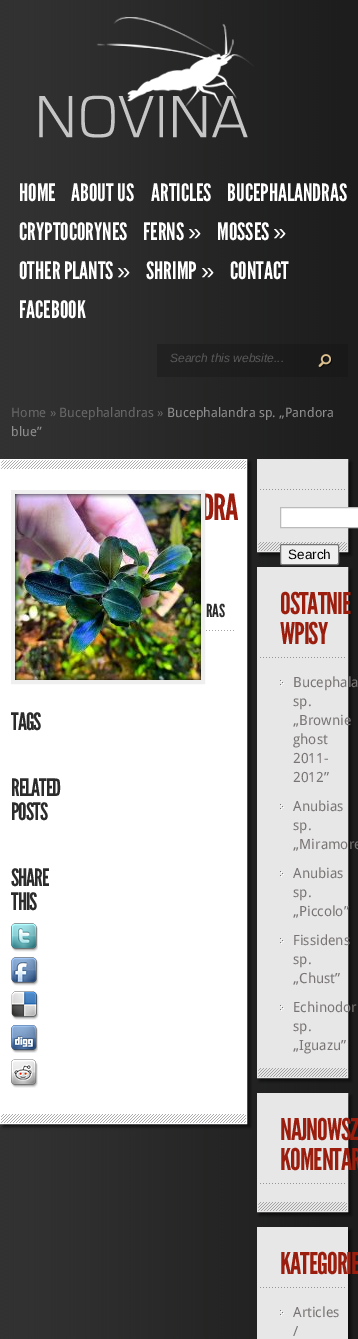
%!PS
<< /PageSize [358 1339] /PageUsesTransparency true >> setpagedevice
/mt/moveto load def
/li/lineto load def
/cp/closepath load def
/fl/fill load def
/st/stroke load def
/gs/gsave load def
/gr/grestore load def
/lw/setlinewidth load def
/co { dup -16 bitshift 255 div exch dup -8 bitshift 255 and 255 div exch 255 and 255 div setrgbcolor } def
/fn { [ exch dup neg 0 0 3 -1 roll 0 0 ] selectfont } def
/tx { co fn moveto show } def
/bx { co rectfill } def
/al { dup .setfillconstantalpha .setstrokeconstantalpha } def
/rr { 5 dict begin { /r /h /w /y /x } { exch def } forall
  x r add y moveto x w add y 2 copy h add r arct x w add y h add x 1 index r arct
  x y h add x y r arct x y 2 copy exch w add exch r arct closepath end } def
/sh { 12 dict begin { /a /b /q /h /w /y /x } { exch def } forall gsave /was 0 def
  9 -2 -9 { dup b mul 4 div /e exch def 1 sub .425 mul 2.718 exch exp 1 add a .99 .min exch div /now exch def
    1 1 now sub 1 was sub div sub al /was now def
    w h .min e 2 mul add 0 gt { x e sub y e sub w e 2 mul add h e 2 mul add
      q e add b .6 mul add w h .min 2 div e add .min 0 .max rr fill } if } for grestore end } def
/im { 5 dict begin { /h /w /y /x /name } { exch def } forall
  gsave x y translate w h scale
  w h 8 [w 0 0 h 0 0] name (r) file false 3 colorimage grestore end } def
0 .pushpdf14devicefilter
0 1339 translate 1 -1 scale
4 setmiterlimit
0 0 358 1339 16#FFFFFF bx
(media/1.raw) 0 0 358 1339 im
(media/2.raw) 39 16 215 122 im
0.28 al
157 344 191 33 16#0E0E0E bx
1 al
(media/3.raw) 318 354 14 14 im
16#000000 co
3 462 247 665 0 1.5 .6 sh
1 460 245 663 16#FFFFFF bx
(media/4.raw) 1 460 245 9 im
.5 459.5 246 664 rectstroke
(media/4.raw) 1 1114 245 9 im
(media/5.raw) 206 630 28 1 im
(media/8.raw) 11 923 27 29 im
(media/9.raw) 11 957 28 29 im
(media/10.raw) 11 991 28 29 im
(media/11.raw) 11 1025 27 28 im
(media/12.raw) 11 1059 27 29 im
16#000000 co
260 462 91 93 0 1.5 .6 sh
258 460 89 91 16#E7E7E7 bx
(media/13.raw) 258 542 89 9 im
257.5 459.5 90 92 rectstroke
(media/14.raw) 260 489 85 1 im
16#FFFFFF co
280.5 507.5 mt 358.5 507.5 li 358.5 527.5 li 280.5 527.5 li cp gs fl gr
16#BBBBBB co
st
16#000000 co
260 570 91 511 0 1.5 .6 sh
16#EFEFEF co
280.5 544.5 58 20 1.5 rr gs fl gr
16#767676 co
st
258 568 89 509 16#E7E7E7 bx
(media/13.raw) 258 1068 89 9 im
257.5 567.5 90 510 rectstroke
(media/14.raw) 260 657 85 1 im
(media/15.raw) 280 680 4 6 im
(media/15.raw) 280 804 4 6 im
(media/15.raw) 280 871 4 6 im
(media/15.raw) 280 938 4 6 im
(media/15.raw) 280 1005 4 6 im
16#000000 co
260 1096 91 119 0 1.5 .6 sh
258 1094 89 117 16#E7E7E7 bx
(media/13.raw) 258 1202 89 9 im
257.5 1093.5 90 118 rectstroke
(media/14.raw) 260 1183 85 1 im
16#000000 co
260 1230 91 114 0 1.5 .6 sh
257 1227 91 112 16#E7E7E7 bx
(media/14.raw) 260 1287 85 1 im
(media/15.raw) 280 1310 4 6 im
(HOME) 19 201 /LeagueGothic-Regular 24 16#FFFFFF tx
(ABOUT US) 71 201 /LeagueGothic-Regular 24 16#FFFFFF tx
(ARTICLES) 151 201 /LeagueGothic-Regular 24 16#FFFFFF tx
(BUCEPHALANDRAS) 227 201 /LeagueGothic-Regular 24 16#FFFFFF tx
(CRYPTOCORYNES) 19 240 /LeagueGothic-Regular 24 16#FFFFFF tx
(FERNS) 143 240 /LeagueGothic-Regular 24 16#FFFFFF tx
(») 188 240 /LiberationSans-Regular 24 16#FFFFFF tx
(MOSSES) 217 240 /LeagueGothic-Regular 24 16#FFFFFF tx
(») 273 240 /LiberationSans-Regular 24 16#FFFFFF tx
(OTHER PLANTS) 19 279 /LeagueGothic-Regular 24 16#FFFFFF tx
(») 117 279 /LiberationSans-Regular 24 16#FFFFFF tx
(SHRIMP) 146 279 /LeagueGothic-Regular 24 16#FFFFFF tx
(») 201 279 /LiberationSans-Regular 24 16#FFFFFF tx
(CONTACT) 230 279 /LeagueGothic-Regular 24 16#FFFFFF tx
(FACEBOOK) 19 318 /LeagueGothic-Regular 24 16#FFFFFF tx
(Search this website...) 170 362 /LiberationSans-Italic 12 16#595959 tx
(Home » Bucephalandras ») 11 417 /DroidSans-Regular 13 16#686767 tx
(Bucephalandra sp. „Pandora) 167 417 /DroidSans-Regular 13 16#8E8E8E tx
(blue”) 11 436 /DroidSans-Regular 13 16#8E8E8E tx
/LeagueGothic-Regular 36 fn
16#9A1D0D co
201 520 mt -1 0 (DRA) ashow
(RAS) 206 617 /LeagueGothic-Regular 18 16#2C2C2C tx
16#EFEFEF co
4 lw
13 492 190 190 rectstroke
(media/6.raw) 15 494 186 186 im
(media/7.raw) 15 494 186 186 im
/LeagueGothic-Regular 24 fn
16#2C2C2C co
11 730 mt -1 0 (TAGS) ashow
11 796 mt -1 0 (RELATED) ashow
11 820 mt -1 0 (POSTS) ashow
11 886 mt -1 0 (SHARE) ashow
11 910 mt -1 0 (THIS) ashow
(Search) 288 559 /LiberationSans-Regular 13.5 16#000000 tx
/LeagueGothic-Regular 30 fn
16#9A1D0D co
280 614 mt -1 0 (OSTATNIE) ashow
280 644 mt -1 0 (WPISY) ashow
(Bucephala) 293 687 /DroidSans-Regular 14 16#7A7575 tx
(sp.) 293 706 /DroidSans-Regular 14 16#7A7575 tx
(„Brownie) 293 725 /DroidSans-Regular 14 16#7A7575 tx
(ghost) 293 744 /DroidSans-Regular 14 16#7A7575 tx
(2011-) 293 763 /DroidSans-Regular 14 16#7A7575 tx
(2012”) 293 782 /DroidSans-Regular 14 16#7A7575 tx
(Anubias) 293 811 /DroidSans-Regular 14 16#7A7575 tx
(sp.) 293 830 /DroidSans-Regular 14 16#7A7575 tx
(„Miramore) 293 849 /DroidSans-Regular 14 16#7A7575 tx
(Anubias) 293 878 /DroidSans-Regular 14 16#7A7575 tx
(sp.) 293 897 /DroidSans-Regular 14 16#7A7575 tx
(„Piccolo”) 293 916 /DroidSans-Regular 14 16#7A7575 tx
(Fissidens) 293 945 /DroidSans-Regular 14 16#7A7575 tx
(sp.) 293 964 /DroidSans-Regular 14 16#7A7575 tx
(„Chust”) 293 983 /DroidSans-Regular 14 16#7A7575 tx
(Echinodor) 293 1012 /DroidSans-Regular 14 16#7A7575 tx
(sp.) 293 1031 /DroidSans-Regular 14 16#7A7575 tx
(„Iguazu”) 293 1050 /DroidSans-Regular 14 16#7A7575 tx
/LeagueGothic-Regular 30 fn
16#9A1D0D co
280 1140 mt -1 0 (NAJNOWSZ) ashow
280 1170 mt -1 0 (KOMENTAR) ashow
280 1274 mt -1 0 (KATEGORIE) ashow
(Articles) 293 1317 /DroidSans-Regular 14 16#7A7575 tx
(/) 293 1336 /DroidSans-Regular 14 16#7A7575 tx
.poppdf14devicefilter showpage
